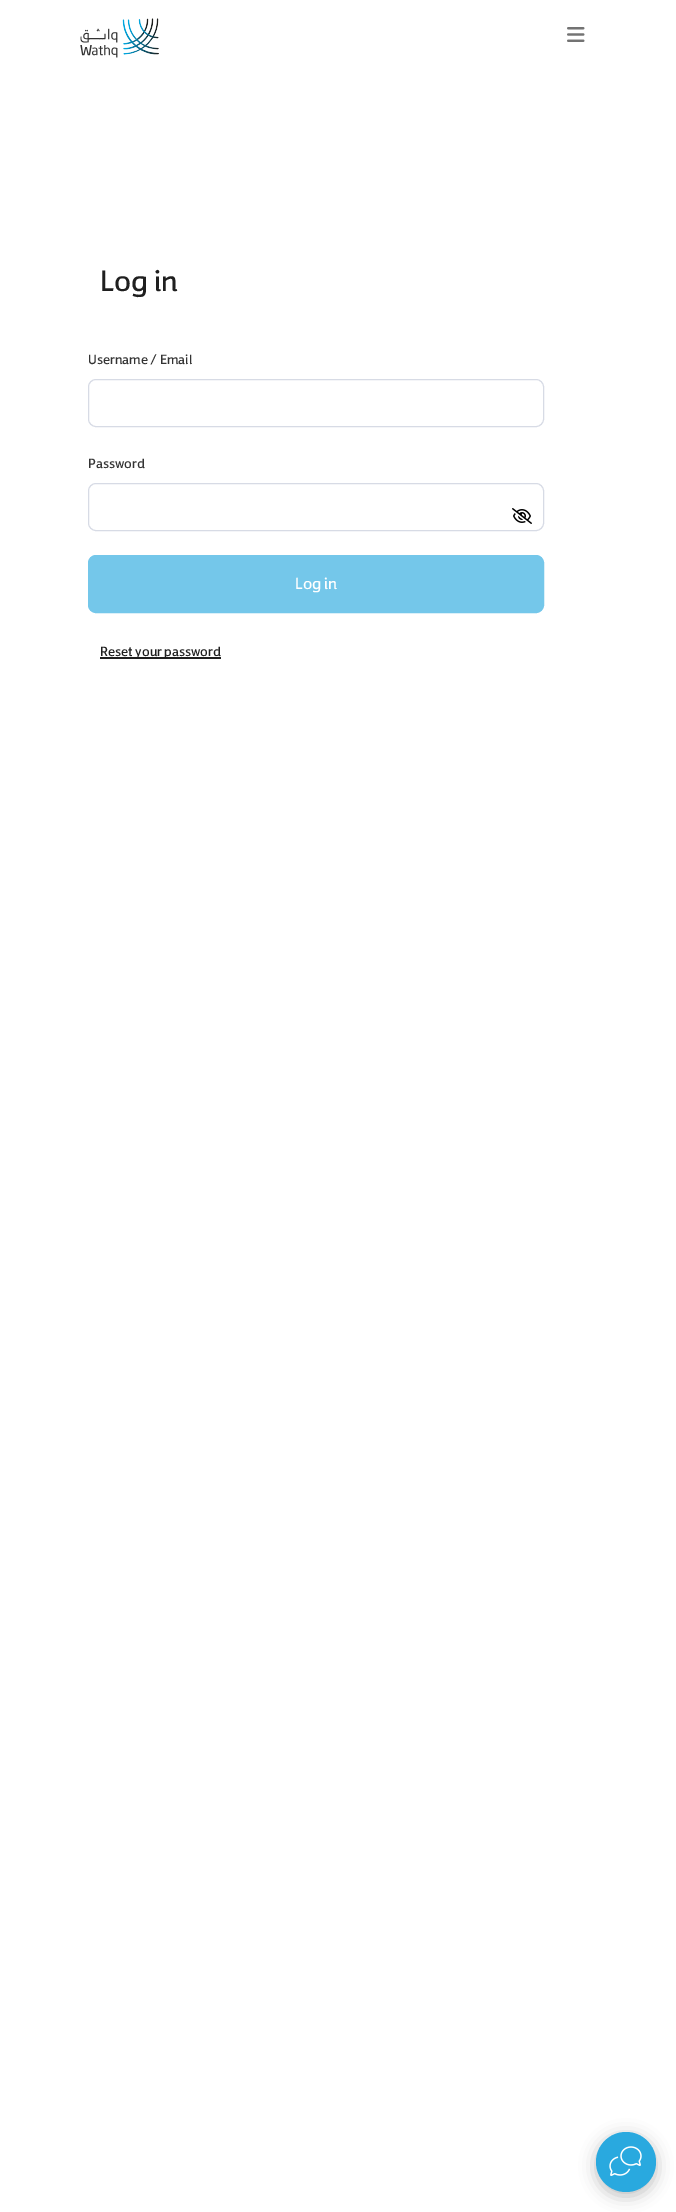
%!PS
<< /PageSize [676 2212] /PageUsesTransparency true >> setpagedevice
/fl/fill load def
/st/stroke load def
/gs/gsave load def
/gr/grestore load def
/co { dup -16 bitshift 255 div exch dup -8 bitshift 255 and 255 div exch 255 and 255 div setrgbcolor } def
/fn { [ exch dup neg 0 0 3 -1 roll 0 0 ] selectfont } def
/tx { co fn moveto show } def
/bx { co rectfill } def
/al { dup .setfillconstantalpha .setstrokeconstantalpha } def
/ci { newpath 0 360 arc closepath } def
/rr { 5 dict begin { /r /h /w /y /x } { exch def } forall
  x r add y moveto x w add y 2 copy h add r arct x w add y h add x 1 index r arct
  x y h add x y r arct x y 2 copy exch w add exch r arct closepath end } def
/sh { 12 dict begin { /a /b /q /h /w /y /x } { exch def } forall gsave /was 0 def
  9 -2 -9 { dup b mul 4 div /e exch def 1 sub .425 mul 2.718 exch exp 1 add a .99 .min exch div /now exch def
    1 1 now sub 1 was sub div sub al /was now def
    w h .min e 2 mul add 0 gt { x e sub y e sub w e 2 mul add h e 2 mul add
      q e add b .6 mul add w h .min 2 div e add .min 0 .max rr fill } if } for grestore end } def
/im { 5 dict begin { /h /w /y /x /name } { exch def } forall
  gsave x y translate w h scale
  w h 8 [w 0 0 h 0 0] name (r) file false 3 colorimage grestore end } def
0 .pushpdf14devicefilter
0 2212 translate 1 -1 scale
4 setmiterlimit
0 0 676 2212 16#FFFFFF bx
(media/1.raw) 80 18 79 40 im
(media/2.raw) 567 27 18 15 im
16#D7DBE5 co
88.5 379.5 455 47 7.5 rr st
88.5 483.5 455 47 7.5 rr st
(media/3.raw) 512 508 20 16 im
16#74C7EA co
88.5 555.5 455 57 7.5 rr gs fl gr
st
100 657 121 2 16#1F1F1F bx
16#000000 co
596 2136 60 60 30 8 .25 sh
16#29A9DF co
626 2162 30 ci fl
(media/4.raw) 609 2146 33 30 im
(Log in) 100 291 /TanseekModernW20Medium-Medium 44 16#1F1F1F tx
(Username / Email) 88 364 /TanseekModernW20Medium-Medium 20 16#333333 tx
(Password) 88 468 /TanseekModernW20Medium-Medium 20 16#333333 tx
(Log in) 295 589 /TanseekModernW20Medium-Medium 24 16#FFFFFF tx
(Reset your password) 100 656 /TanseekModernW20Medium-Medium 20 16#1F1F1F tx
.poppdf14devicefilter showpage
